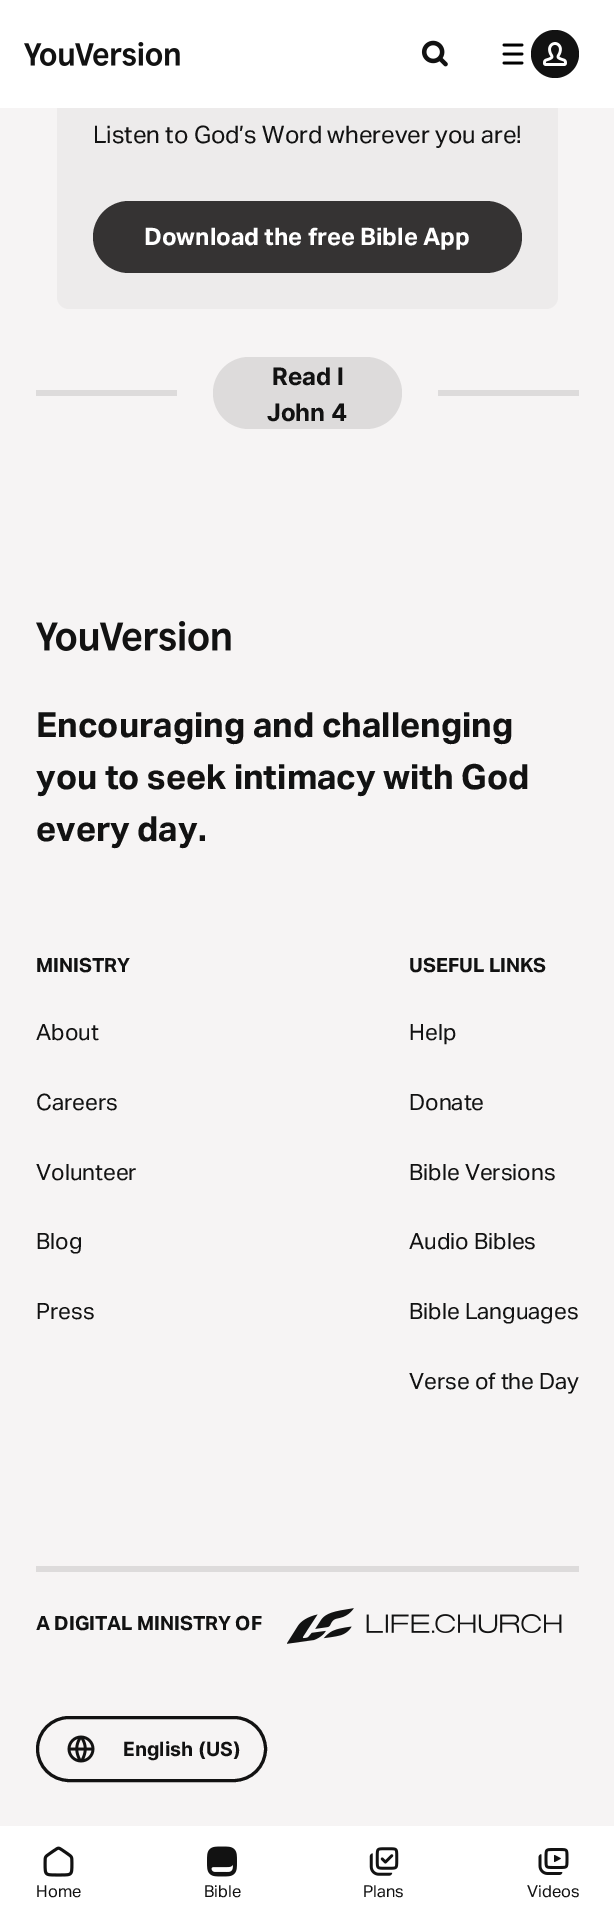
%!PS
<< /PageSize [614 1921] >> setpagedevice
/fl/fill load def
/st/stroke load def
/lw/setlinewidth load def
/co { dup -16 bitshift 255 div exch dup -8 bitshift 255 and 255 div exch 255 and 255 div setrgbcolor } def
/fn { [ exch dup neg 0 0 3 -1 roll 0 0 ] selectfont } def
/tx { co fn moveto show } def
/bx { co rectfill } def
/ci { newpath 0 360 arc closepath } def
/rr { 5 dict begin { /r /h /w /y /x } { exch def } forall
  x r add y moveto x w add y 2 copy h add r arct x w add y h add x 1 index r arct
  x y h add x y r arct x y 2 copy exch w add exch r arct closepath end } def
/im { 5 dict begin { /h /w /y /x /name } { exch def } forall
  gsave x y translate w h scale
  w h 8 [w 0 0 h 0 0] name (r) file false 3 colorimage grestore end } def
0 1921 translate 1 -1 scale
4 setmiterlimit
0 0 614 1921 16#F6F4F4 bx
16#EDEBEB co
57 -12 501 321 12 rr fl
0 0 614 108 16#FFFFFF bx
(media/1.raw) 24 42 156 24 im
(media/2.raw) 421 40 27 27 im
(media/3.raw) 502 43 22 22 im
16#121212 co
555 54 24 ci fl
(media/4.raw) 543 42 24 24 im
16#353333 co
93 201 429 72 36 rr fl
36 390 141 6 16#DDDBDB bx
213 357 189 72 36 rr fl
438 390 141 6 16#DDDBDB bx
(media/5.raw) 36 621 195 30 im
36 1566 543 6 16#DDDBDB bx
(media/6.raw) 287 1608 275 36 im
16#121212 co
3 lw
37.5 1717.5 228 63 31.5 rr st
(media/7.raw) 67 1735 28 28 im
0 1826 614 95 16#FFFFFF bx
(media/8.raw) 43 1846 31 31 im
(media/9.raw) 207 1846 30 31 im
(media/10.raw) 369 1847 30 29 im
(media/11.raw) 538 1848 31 27 im
(Listen to God’s Word wherever you are!) 93 143 /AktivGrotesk-Regular 24 16#121212 tx
(Download the free Bible App) 144 245 /AktivGrotesk-Bold 24 16#FFFFFF tx
(Read I) 272 385 /Inter-Bold 24 16#121212 tx
(John 4) 267 421 /Inter-Bold 24 16#121212 tx
(Encouraging and challenging) 36 737 /AktivGrotesk-Bold 34.5 16#121212 tx
(you to seek intimacy with God) 36 789 /AktivGrotesk-Bold 34.5 16#121212 tx
(every day.) 36 841 /AktivGrotesk-Bold 34.5 16#121212 tx
(MINISTRY) 36 972 /AktivGrotesk-Bold 19.5 16#121212 tx
(About) 36 1040 /AktivGrotesk-Regular 22.5 16#121212 tx
(Careers) 36 1110 /AktivGrotesk-Regular 22.5 16#121212 tx
(Volunteer) 36 1180 /AktivGrotesk-Regular 22.5 16#121212 tx
(Blog) 36 1249 /AktivGrotesk-Regular 22.5 16#121212 tx
(Press) 36 1319 /AktivGrotesk-Regular 22.5 16#121212 tx
(USEFUL LINKS) 409 972 /AktivGrotesk-Bold 19.5 16#121212 tx
(Help) 409 1040 /AktivGrotesk-Regular 22.5 16#121212 tx
(Donate) 409 1110 /AktivGrotesk-Regular 22.5 16#121212 tx
(Bible Versions) 409 1180 /AktivGrotesk-Regular 22.5 16#121212 tx
(Audio Bibles) 409 1249 /AktivGrotesk-Regular 22.5 16#121212 tx
(Bible Languages) 409 1319 /AktivGrotesk-Regular 22.5 16#121212 tx
(Verse of the Day) 409 1389 /AktivGrotesk-Regular 22.5 16#121212 tx
(A DIGITAL MINISTRY OF) 36 1630 /AktivGrotesk-Bold 19.5 16#121212 tx
(English \(US\)) 123 1756 /Inter-Bold 19.5 16#121212 tx
(Home) 36 1897 /AktivGrotesk-Regular 16.5 16#121212 tx
(Bible) 204 1897 /AktivGrotesk-Regular 16.5 16#121212 tx
(Plans) 363 1897 /AktivGrotesk-Regular 16.5 16#121212 tx
(Videos) 527 1897 /AktivGrotesk-Regular 16.5 16#121212 tx
showpage
